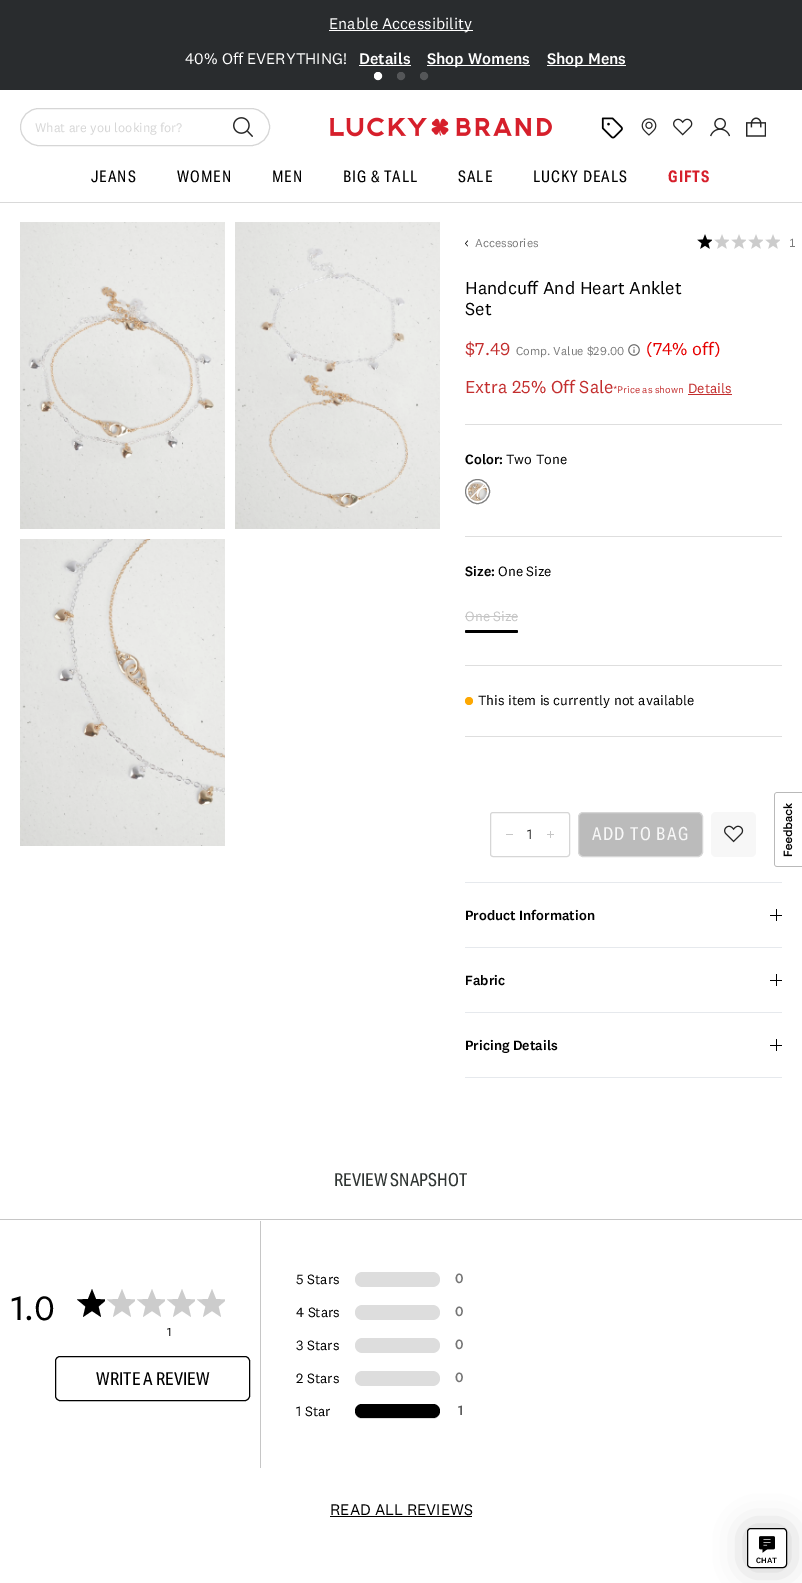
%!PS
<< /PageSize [802 1583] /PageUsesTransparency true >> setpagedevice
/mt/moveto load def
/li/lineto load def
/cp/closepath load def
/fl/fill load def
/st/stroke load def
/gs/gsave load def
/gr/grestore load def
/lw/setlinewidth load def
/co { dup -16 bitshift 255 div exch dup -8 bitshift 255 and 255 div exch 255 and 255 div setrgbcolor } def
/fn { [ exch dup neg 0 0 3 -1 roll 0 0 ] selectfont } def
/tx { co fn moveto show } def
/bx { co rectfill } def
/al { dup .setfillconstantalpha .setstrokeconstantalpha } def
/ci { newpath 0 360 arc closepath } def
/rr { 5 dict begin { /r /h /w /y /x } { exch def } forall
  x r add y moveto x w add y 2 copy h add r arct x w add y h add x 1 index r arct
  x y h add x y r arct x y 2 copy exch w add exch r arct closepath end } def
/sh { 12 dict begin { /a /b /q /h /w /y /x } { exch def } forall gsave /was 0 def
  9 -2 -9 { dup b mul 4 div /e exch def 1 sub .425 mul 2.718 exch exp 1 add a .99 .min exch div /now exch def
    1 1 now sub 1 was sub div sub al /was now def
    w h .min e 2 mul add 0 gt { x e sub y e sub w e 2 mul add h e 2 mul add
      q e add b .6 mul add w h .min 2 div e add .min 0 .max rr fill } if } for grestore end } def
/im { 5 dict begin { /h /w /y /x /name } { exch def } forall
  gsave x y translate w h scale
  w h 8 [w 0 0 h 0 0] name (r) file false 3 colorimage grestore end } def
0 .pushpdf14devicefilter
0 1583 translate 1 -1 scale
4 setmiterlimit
0 0 802 1583 16#FFFFFF bx
0 0 802 90 16#292C2E bx
329 30 144 1 16#FFFFFF bx
0 202 802 1 16#D9D9D9 bx
359 65 52 1 16#FFFFFF bx
427 65 103 1 16#FFFFFF bx
547 65 79 1 16#FFFFFF bx
378 76 3.5 ci gs fl gr
st
16#545658 co
401 76 3.5 ci gs fl gr
st
424 76 3.5 ci gs fl gr
st
16#D6D6D6 co
20.5 108.5 249 37 18.5 rr st
(media/1.raw) 233 117 20 20 im
(media/2.raw) 330 117 222 20 im
(media/3.raw) 601 117 22 22 im
(media/4.raw) 641 118 16 18 im
(media/5.raw) 673 118 20 18 im
(media/6.raw) 710 117 20 20 im
(media/7.raw) 746 117 20 20 im
(media/8.raw) 20 222 205 307 im
(media/9.raw) 235 222 205 307 im
(media/10.raw) 20 539 205 307 im
(media/11.raw) 465 240 3 7 im
(media/12.raw) 697 234 15 15 im
(media/13.raw) 714 234 15 15 im
(media/13.raw) 731 234 15 15 im
(media/13.raw) 748 234 15 15 im
(media/13.raw) 765 234 15 15 im
(media/14.raw) 628 344 12 12 im
688 394 44 1 16#C32E2E bx
465 665 317 1 16#DEDEDE bx
465 424 317 1 16#DEDEDE bx
16#CCCCCC co
477.5 491.5 11 ci gs fl gr
16#FFFFFF co
3 lw
st
(media/15.raw) 468 482 19 19 im
16#7E7E7E co
1 lw
477.5 491.5 12 ci st
16#FFFFFF co
484 484 mt 484.5 485 li 471 498 li 470.5 497.5 li cp fl
465 536 317 1 16#DEDEDE bx
465 616 53 1 16#C6C6C6 bx
16#000000 co
465 630 53 3 1.5 rr fl
465 736 317 1 16#DEDEDE bx
16#FDA802 co
469 701 4 ci fl
16#D6D6D6 co
490.5 812.5 79 44 2.5 rr st
506 834 7 1 16#C6C6C6 bx
547 834 7 1 16#C6C6C6 bx
550 831 1 7 16#C6C6C6 bx
16#BBBBBB co
578.5 812.5 124 44 4.5 rr gs fl gr
16#D6D6D6 co
st
16#F7F7F7 co
711 812 45 45 5 rr fl
(media/16.raw) 724 825 20 18 im
465 882 317 1 16#E6E9ED bx
465 947 317 1 16#E6E9ED bx
776 909 1 12 16#000000 bx
770 915 12 1 16#000000 bx
465 1012 317 1 16#E6E9ED bx
776 974 1 12 16#000000 bx
770 980 12 1 16#000000 bx
465 1077 317 1 16#E6E9ED bx
776 1039 1 12 16#000000 bx
770 1045 12 1 16#000000 bx
0 1219 802 1 16#C6C6C6 bx
260 1221 1 247 16#C6C6C6 bx
16#000000 co
92 1289 mt 96 1299 li 105 1299.5 li 105 1301 li 98.5 1306.5 li 101 1317 li 92 1311 li 83 1317 li 85.5 1306.5 li 77 1299.5 li 88 1299 li cp fl
16#CCCCCC co
122 1289 mt 126 1299 li 135 1299.5 li 135 1301 li 128.5 1306.5 li 131 1317 li 122 1311 li 113 1317 li 115.5 1306.5 li 107 1299.5 li 118 1299 li cp 152 1289 mt 156 1299 li 165 1299.5 li 165 1301 li 158.5 1306.5 li 161 1317 li 152 1311 li 143 1317 li 145.5 1306.5 li 137 1299.5 li 148 1299 li cp fl
182 1289 mt 186 1299 li 195 1299.5 li 195 1301 li 188.5 1306.5 li 191 1317 li 182 1311 li 173 1317 li 175.5 1306.5 li 167 1299.5 li 178 1299 li cp 212 1289 mt 216 1299 li 225 1299.5 li 225 1301 li 218.5 1306.5 li 221 1317 li 212 1311 li 203 1317 li 205.5 1306.5 li 197 1299.5 li 208 1299 li cp fl
16#000000 co
55.5 1356.5 194 44 4.5 rr st
16#DDDDDD co
355 1272 85 15 7.5 rr fl
355 1305 85 15 7.5 rr fl
355 1338 85 15 7.5 rr fl
355 1371 85 15 7.5 rr fl
355 1404 85 15 7.5 rr fl
16#000000 co
355 1404 85 14 7 rr fl
330 1516 142 1 16#000000 bx
(media/17.raw) 774 792 28 75 im
746 1527 42 42 5 15 .2 sh
16#FFFFFF co
747.5 1528.5 39 39 3.5 rr gs fl gr
16#000000 co
st
(media/18.raw) 759 1536 16 17 im
(Enable Accessibility) 329 29 /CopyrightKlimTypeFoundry-Regular 16 16#FFFFFF tx
(40% Off EVERYTHING!) 185 64 /CopyrightKlimTypeFoundry-Regular 16 16#FFFFFF tx
(Details) 359 64 /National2-Medium 16 16#FFFFFF tx
(Shop Womens) 427 64 /National2-Medium 16 16#FFFFFF tx
(Shop Mens) 547 64 /National2-Medium 16 16#FFFFFF tx
(What are you looking for?) 35 132 /CopyrightKlimTypeFoundry-Regular 13 16#D6D6D6 tx
/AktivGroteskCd-Regular 16 fn
16#000000 co
91 182 mt 1 0 (JEANS) ashow
177 182 mt 1 0 (WOMEN) ashow
272 182 mt 1 0 (MEN) ashow
343 182 mt 1 0 (BIG & TALL) ashow
458 182 mt 1 0 (SALE) ashow
533 182 mt 1 0 (LUCKY DEALS) ashow
/AktivGroteskCd-Bold 16 fn
16#D61F2B co
668 182 mt 1 0 (GIFTS) ashow
(Accessories) 475 247 /CopyrightKlimTypeFoundry-Regular 12 16#7C7C7C tx
(Handcuff And Heart Anklet) 465 294 /CopyrightKlimTypeFoundry-Regular 18 16#000000 tx
(Set) 465 315 /CopyrightKlimTypeFoundry-Regular 18 16#000000 tx
(1) 789 247 /LiberationSans-Regular 12 16#7C7C7C tx
($7.49) 465 355 /CopyrightKlimTypeFoundry-Regular 18 16#C32E2E tx
(Comp. Value $29.00) 516 355 /CopyrightKlimTypeFoundry-Regular 12 16#7C7C7C tx
(\(74% off\)) 646 355 /CopyrightKlimTypeFoundry-Regular 18 16#E60000 tx
(Extra 25% Off Sale) 465 393 /CopyrightKlimTypeFoundry-Regular 18 16#C32E2E tx
(*Price as shown) 613 393 /CopyrightKlimTypeFoundry-Regular 10 16#C32E2E tx
(Details) 688 393 /CopyrightKlimTypeFoundry-Regular 14 16#C32E2E tx
(Color:) 465 464 /National2-Medium 14 16#000000 tx
(Two Tone) 506 464 /CopyrightKlimTypeFoundry-Regular 14 16#000000 tx
(Size:) 465 576 /National2-Medium 14 16#000000 tx
(One Size) 498 576 /CopyrightKlimTypeFoundry-Regular 14 16#000000 tx
(One Size) 465 621 /CopyrightKlimTypeFoundry-Regular 14 16#C6C6C6 tx
(This item is currently not available) 478 705 /CopyrightKlimTypeFoundry-Regular 14 16#000000 tx
(1) 527 839 /CopyrightKlimTypeFoundry-Regular 14 16#252525 tx
/AktivGroteskCd-Regular 18 fn
16#F7F7F7 co
592 840 mt 1.25 0 (ADD TO BAG) ashow
(Product Information) 465 920 /National2-Medium 14 16#000000 tx
(Fabric) 465 985 /National2-Medium 14 16#000000 tx
(Pricing Details) 465 1050 /National2-Medium 14 16#000000 tx
(REVIEW SNAPSHOT) 334 1186 /AktivGroteskCd-Regular 18 16#303533 tx
(1.0) 11 1320 /CopyrightKlimTypeFoundry-Regular 35 16#000000 tx
(1) 167 1336 /CopyrightKlimTypeFoundry-Regular 12 16#000000 tx
(WRITE A REVIEW) 96 1385 /AktivGroteskCd-Regular 18 16#000000 tx
(5 Stars) 296 1284 /CopyrightKlimTypeFoundry-Regular 14 16#000000 tx
(0) 455 1283 /National2-Medium 14 16#767676 tx
(4 Stars) 296 1317 /CopyrightKlimTypeFoundry-Regular 14 16#000000 tx
(0) 455 1316 /National2-Medium 14 16#767676 tx
(3 Stars) 296 1350 /CopyrightKlimTypeFoundry-Regular 14 16#000000 tx
(0) 455 1349 /National2-Medium 14 16#767676 tx
(2 Stars) 296 1383 /CopyrightKlimTypeFoundry-Regular 14 16#000000 tx
(0) 455 1382 /National2-Medium 14 16#767676 tx
(1 Star) 296 1416 /CopyrightKlimTypeFoundry-Regular 14 16#000000 tx
(1) 458 1415 /National2-Medium 14 16#5D5D5D tx
(READ ALL REVIEWS) 330 1515 /CopyrightKlimTypeFoundry-Regular 16 16#000000 tx
(CHAT) 756 1563 /National2-Medium 8 16#000000 tx
.poppdf14devicefilter showpage
